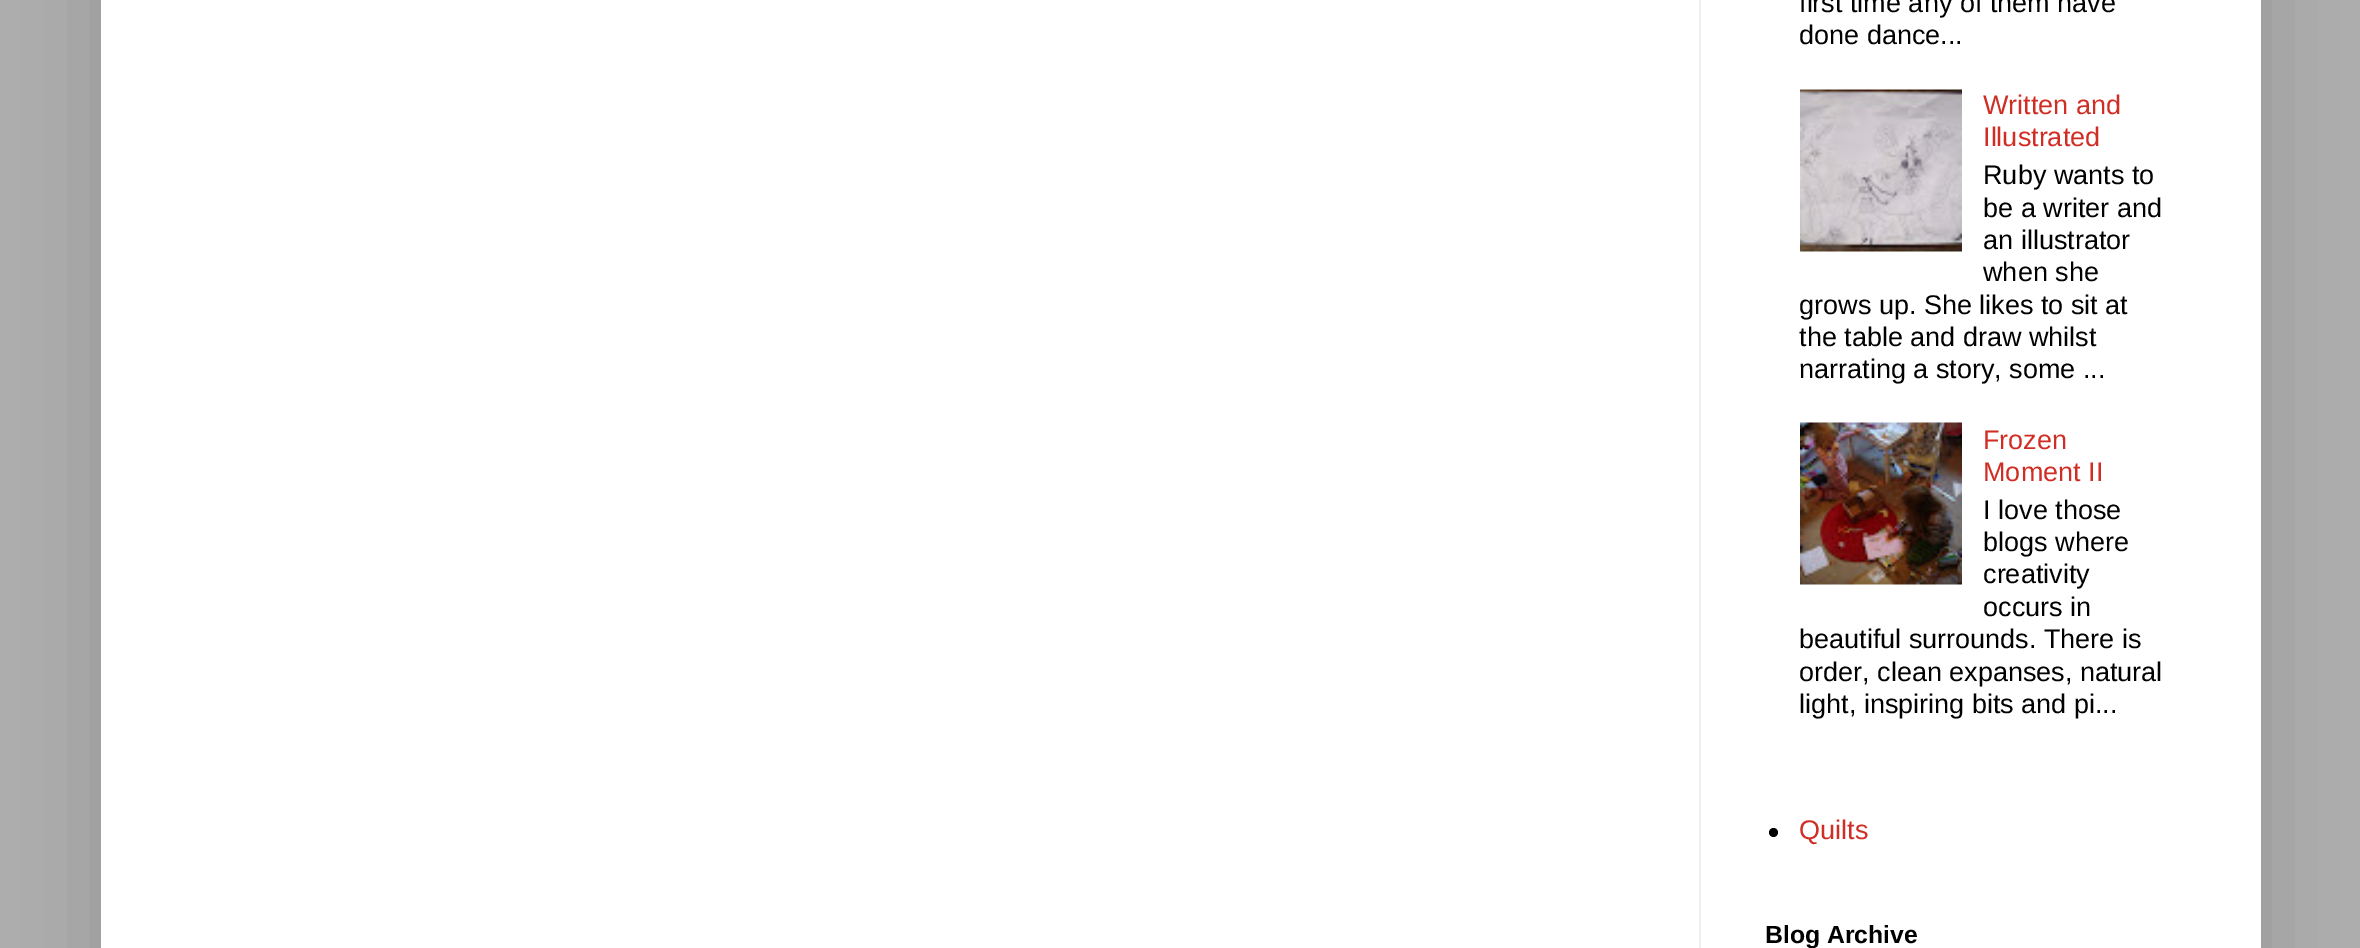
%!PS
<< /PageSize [2360 948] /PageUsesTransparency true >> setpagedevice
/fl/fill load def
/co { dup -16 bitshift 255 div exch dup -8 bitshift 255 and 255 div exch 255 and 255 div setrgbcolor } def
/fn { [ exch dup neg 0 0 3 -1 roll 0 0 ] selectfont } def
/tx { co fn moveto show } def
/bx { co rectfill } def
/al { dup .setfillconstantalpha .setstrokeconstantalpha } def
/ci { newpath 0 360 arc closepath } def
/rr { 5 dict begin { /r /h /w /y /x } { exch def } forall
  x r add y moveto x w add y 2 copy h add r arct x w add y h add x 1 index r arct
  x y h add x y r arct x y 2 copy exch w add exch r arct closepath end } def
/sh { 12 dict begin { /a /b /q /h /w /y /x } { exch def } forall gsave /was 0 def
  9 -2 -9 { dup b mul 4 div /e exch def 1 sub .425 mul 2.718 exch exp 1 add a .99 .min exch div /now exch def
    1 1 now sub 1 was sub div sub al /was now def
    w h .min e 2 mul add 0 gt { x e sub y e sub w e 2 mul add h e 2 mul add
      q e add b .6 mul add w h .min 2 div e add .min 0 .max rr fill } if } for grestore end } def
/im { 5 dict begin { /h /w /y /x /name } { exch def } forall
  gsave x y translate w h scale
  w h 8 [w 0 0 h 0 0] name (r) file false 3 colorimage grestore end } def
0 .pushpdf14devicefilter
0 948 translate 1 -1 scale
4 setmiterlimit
0 0 2360 948 16#AEAEAE bx
16#000000 co
101 -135 2160 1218 0 45 .15 sh
101 0 2160 948 16#FFFFFF bx
1699 0 2 948 16#F0F0F0 bx
(media/1.raw) 1800 89 162 163 im
(media/2.raw) 1800 422 162 163 im
16#000000 co
1773.5 832.5 4.5 ci fl
(first time any of them have) 1799 12 /LiberationSans-Regular 27 16#000000 tx
(done dance...) 1799 44 /LiberationSans-Regular 27 16#000000 tx
(Written and) 1983 114 /LiberationSans-Regular 27 16#D02D25 tx
(Illustrated) 1983 146 /LiberationSans-Regular 27 16#D02D25 tx
(Ruby wants to) 1983 184 /LiberationSans-Regular 27 16#000000 tx
(be a writer and) 1983 217 /LiberationSans-Regular 27 16#000000 tx
(an illustrator) 1983 249 /LiberationSans-Regular 27 16#000000 tx
(when she) 1983 281 /LiberationSans-Regular 27 16#000000 tx
(grows up. She likes to sit at) 1799 314 /LiberationSans-Regular 27 16#000000 tx
(the table and draw whilst) 1799 346 /LiberationSans-Regular 27 16#000000 tx
(narrating a story, some ...) 1799 378 /LiberationSans-Regular 27 16#000000 tx
(Frozen) 1983 449 /LiberationSans-Regular 27 16#D02D25 tx
(Moment II) 1983 481 /LiberationSans-Regular 27 16#D02D25 tx
(I love those) 1983 519 /LiberationSans-Regular 27 16#000000 tx
(blogs where) 1983 551 /LiberationSans-Regular 27 16#000000 tx
(creativity) 1983 583 /LiberationSans-Regular 27 16#000000 tx
(occurs in) 1983 616 /LiberationSans-Regular 27 16#000000 tx
(beautiful surrounds. There is) 1799 648 /LiberationSans-Regular 27 16#000000 tx
(order, clean expanses, natural) 1799 681 /LiberationSans-Regular 27 16#000000 tx
(light, inspiring bits and pi...) 1799 713 /LiberationSans-Regular 27 16#000000 tx
(Quilts) 1799 839 /LiberationSans-Regular 27 16#D02D25 tx
(Blog Archive) 1765 943 /LiberationSans-Bold 24.75 16#000000 tx
.poppdf14devicefilter showpage
